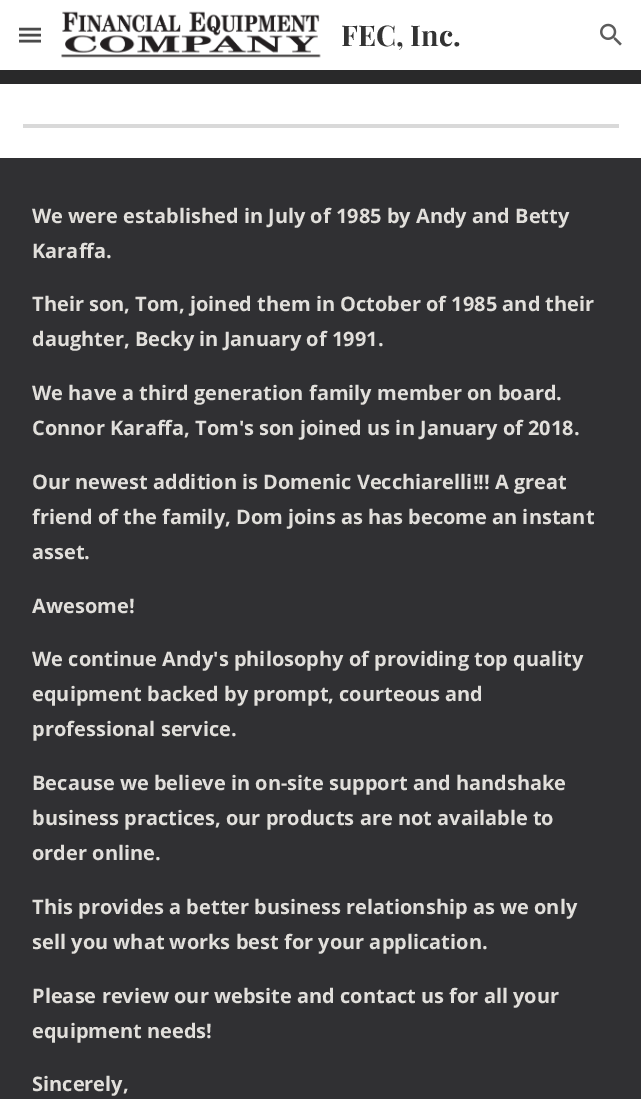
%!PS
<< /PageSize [641 1099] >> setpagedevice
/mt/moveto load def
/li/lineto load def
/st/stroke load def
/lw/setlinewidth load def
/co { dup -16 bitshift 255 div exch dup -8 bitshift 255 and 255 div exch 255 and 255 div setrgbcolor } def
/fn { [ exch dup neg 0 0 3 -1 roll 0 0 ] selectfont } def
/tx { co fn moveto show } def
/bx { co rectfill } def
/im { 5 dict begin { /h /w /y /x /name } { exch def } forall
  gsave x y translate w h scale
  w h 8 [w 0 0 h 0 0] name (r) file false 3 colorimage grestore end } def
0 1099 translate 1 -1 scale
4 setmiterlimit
0 0 641 1099 16#FFFFFF bx
16#4B4B4B co
2.5 lw
19 29 mt 41 29 li 19 35 mt 41 35 li 19 41 mt 41 41 li st
(media/1.raw) 61 11 260 47 im
(media/2.raw) 600 23 22 23 im
0 70 641 14 16#29292A bx
23 124 596 4 16#D9D9D9 bx
0 158 641 941 16#303033 bx
(FEC, Inc.) 341 46 /PlayfairDisplay-Bold 28.5 16#333333 tx
(We were established in July of 1985 by Andy and Betty) 32 223 /OpenSans-Bold 20 16#E1DFDB tx
(Karaffa.) 32 258 /OpenSans-Bold 20 16#E1DFDB tx
(Their son, Tom, joined them in October of 1985 and their) 32 311 /OpenSans-Bold 20 16#E1DFDB tx
(daughter, Becky in January of 1991.) 32 346 /OpenSans-Bold 20 16#E1DFDB tx
(We have a third generation family member on board.) 32 400 /OpenSans-Bold 20 16#E1DFDB tx
(Connor Karaffa, Tom's son joined us in January of 2018.) 32 435 /OpenSans-Bold 20 16#E1DFDB tx
(Our newest addition is Domenic Vecchiarelli!!! A great) 32 489 /OpenSans-Bold 20 16#E1DFDB tx
(friend of the family, Dom joins as has become an instant) 32 524 /OpenSans-Bold 20 16#E1DFDB tx
(asset.) 32 559 /OpenSans-Bold 20 16#E1DFDB tx
(Awesome!) 32 613 /OpenSans-Bold 20 16#E1DFDB tx
(We continue Andy's philosophy of providing top quality) 32 666 /OpenSans-Bold 20 16#E1DFDB tx
(equipment backed by prompt, courteous and) 32 701 /OpenSans-Bold 20 16#E1DFDB tx
(professional service.) 32 736 /OpenSans-Bold 20 16#E1DFDB tx
(Because we believe in on-site support and handshake) 32 790 /OpenSans-Bold 20 16#E1DFDB tx
(business practices, our products are not available to) 32 825 /OpenSans-Bold 20 16#E1DFDB tx
(order online.) 32 860 /OpenSans-Bold 20 16#E1DFDB tx
(This provides a better business relationship as we only) 32 914 /OpenSans-Bold 20 16#E1DFDB tx
(sell you what works best for your application.) 32 949 /OpenSans-Bold 20 16#E1DFDB tx
(Please review our website and contact us for all your) 32 1003 /OpenSans-Bold 20 16#E1DFDB tx
(equipment needs!) 32 1038 /OpenSans-Bold 20 16#E1DFDB tx
(Sincerely,) 32 1091 /OpenSans-Bold 20 16#E1DFDB tx
showpage
